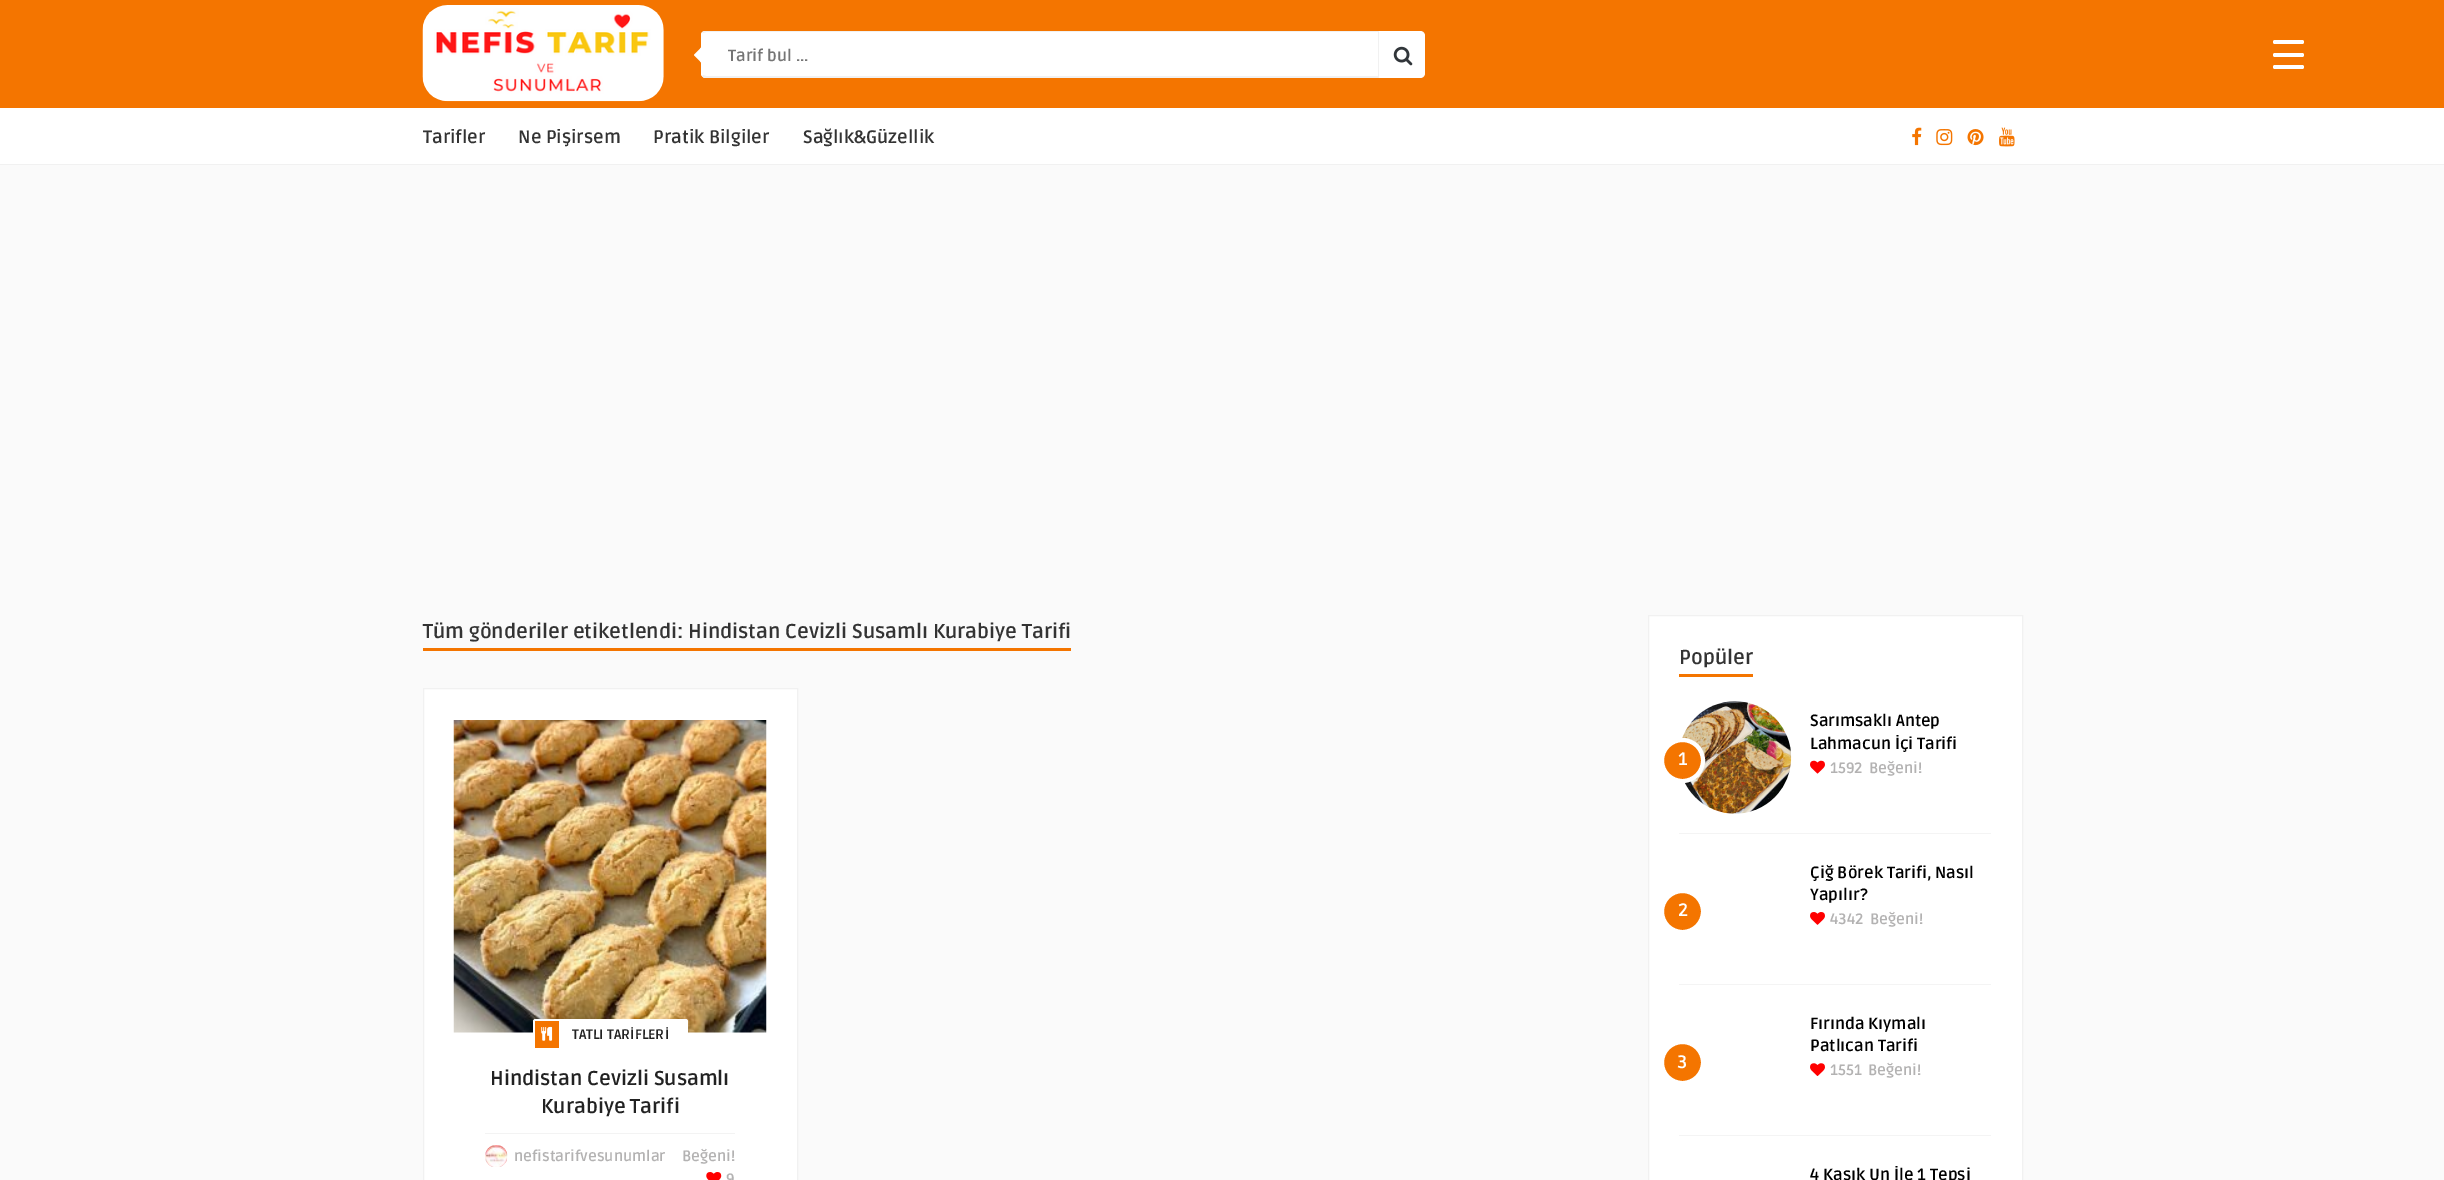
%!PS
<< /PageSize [2444 1180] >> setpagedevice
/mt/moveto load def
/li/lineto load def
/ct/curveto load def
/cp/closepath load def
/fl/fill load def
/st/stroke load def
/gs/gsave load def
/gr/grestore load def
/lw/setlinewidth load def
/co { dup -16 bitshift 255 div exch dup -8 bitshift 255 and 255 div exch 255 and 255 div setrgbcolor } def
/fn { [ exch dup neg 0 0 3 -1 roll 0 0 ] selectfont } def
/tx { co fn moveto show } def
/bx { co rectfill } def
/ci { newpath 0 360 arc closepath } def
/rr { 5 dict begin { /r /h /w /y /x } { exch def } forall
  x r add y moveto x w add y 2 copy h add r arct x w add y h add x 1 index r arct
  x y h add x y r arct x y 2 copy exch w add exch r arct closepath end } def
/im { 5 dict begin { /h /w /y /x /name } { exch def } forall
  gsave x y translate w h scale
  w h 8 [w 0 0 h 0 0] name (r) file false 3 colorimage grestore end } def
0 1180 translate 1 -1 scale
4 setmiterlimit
0 0 2444 1180 16#FAFAFA bx
0 0 2444 108 16#F47500 bx
(media/1.raw) 422 5 242 97 im
16#FFFFFF co
706 31 mt 1379 31 li 1379 78 li 706 78 li 703 78 701 76 701 73 ct 701 36 li 701 33 703 31 706 31 ct cp fl
16#F1F1F1 co
706 32 mt 703 33 li 702 32 li 704 31 li 1379 31 li 1378 32 li cp fl
1379 31 mt 1378 32 li 1378 76 li 1377 76 li 1379 78 li cp fl
1379 78 mt 704 78 li 702 76 li 703 75 li 706 76 li 1377 76 li cp fl
16#FFFFFF co
701 34 mt 702 32 li 703 33 li 702 34 702 35 702 36 ct 702 72 li 702 74 703 75 703 75 ct 702 76 li 701 74 li cp fl
706 42.5 mt 706 67.5 li 694 55 li cp fl
1379 31 mt 1420 31 li 1423 31 1425 33 1425 36 ct 1425 73 li 1425 76 1423 78 1420 78 ct 1379 78 li cp fl
(media/2.raw) 1393 46 20 20 im
0 108 2444 56 16#FFFFFF bx
0 164 2444 1 16#F1F1F1 bx
(media/3.raw) 1912 127 10 19 im
(media/4.raw) 1936 129 17 17 im
(media/5.raw) 1967 129 17 17 im
(media/6.raw) 1999 127 16 20 im
16#FFFFFF co
2273 53 31 4 2 rr fl
2273 40 31 4 2 rr fl
2273 65 31 4 2 rr fl
423 648 648 3 16#F47500 bx
16#FFFFFF co
423.5 688.5 mt 797.5 688.5 li 797.5 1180.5 li 423.5 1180.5 li cp gs fl gr
16#F1F1F1 co
st
(media/7.raw) 453 720 314 313 im
16#FFFFFF co
533 1019 155 31 2.5 rr fl
535 1021 24 27 16#F47500 bx
(media/8.raw) 541 1026 12 15 im
485 1133 250 1 16#F3F3F3 bx
(media/9.raw) 485 1145 23 22 im
(media/10.raw) 706 1172 16 8 im
16#FFFFFF co
1648.5 615.5 mt 2022.5 615.5 li 2022.5 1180.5 li 1648.5 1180.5 li cp gs fl gr
16#F1F1F1 co
st
1679 674 74 3 16#F47500 bx
1679 833 312 1 16#F4F4F4 bx
(media/11.raw) 1682 701 110 113 im
(media/12.raw) 1810 760 15 14 im
16#F47500 co
1682.5 760.5 20.5 ci gs fl gr
16#FFFFFF co
4 lw
st
1679 984 312 1 16#F4F4F4 bx
16#F47500 co
1682.5 911.5 20.5 ci gs fl gr
16#FFFFFF co
st
(media/13.raw) 1810 912 15 13 im
1679 1135 312 1 16#F4F4F4 bx
16#F47500 co
1682.5 1062.5 20.5 ci gs fl gr
16#FFFFFF co
st
(media/14.raw) 1810 1063 15 13 im
(Tarif bul ...) 728 61 /Ruda-Bold 16.25 16#757575 tx
(Tarifler) 423 143 /Ruda-Bold 18 16#333333 tx
(Ne Pişirsem) 518 143 /Ruda-Bold 18 16#333333 tx
(Pratik Bilgiler) 653 143 /Ruda-Bold 18 16#333333 tx
(Sağlık&Güzellik) 803 143 /Ruda-Bold 18 16#333333 tx
(Tüm gönderiler etiketlendi: Hindistan Cevizli Susamlı Kurabiye Tarifi) 423 638 /Ruda-Bold 20 16#333333 tx
(TATLI TARİFLERİ) 572 1039 /Ruda-Bold 13.75 16#222222 tx
(Hindistan Cevizli Susamlı) 490 1085 /Ruda-Bold 20 16#222222 tx
(Kurabiye Tarifi) 541 1113 /Ruda-Bold 20 16#222222 tx
(nefistarifvesunumlar) 514 1161 /Ruda-Bold 15 16#B3B2B2 tx
(Beğeni!) 682 1161 /Ruda-Bold 15 16#B3B2B2 tx
(9) 726 1184 /Ruda-Bold 15 16#B3B2B2 tx
(Popüler) 1679 664 /Ruda-Bold 20 16#333333 tx
(Sarımsaklı Antep) 1810 726 /Ruda-Bold 16.25 16#000000 tx
(Lahmacun İçi Tarifi) 1810 749 /Ruda-Bold 16.25 16#000000 tx
(1592) 1830 773 /Ruda-Bold 15 16#B3B2B2 tx
(Beğeni!) 1869 773 /Ruda-Bold 15 16#B3B2B2 tx
(1) 1678 765 /Ruda-Bold 18 16#FFFFFF tx
(2) 1678 916 /Ruda-Bold 18 16#FFFFFF tx
(Çiğ Börek Tarifi, Nasıl) 1810 878 /Ruda-Bold 16.25 16#000000 tx
(Yapılır?) 1810 900 /Ruda-Bold 16.25 16#000000 tx
(4342) 1830 924 /Ruda-Bold 15 16#B3B2B2 tx
(Beğeni!) 1870 924 /Ruda-Bold 15 16#B3B2B2 tx
(3) 1677 1068 /Ruda-Bold 18 16#FFFFFF tx
(Fırında Kıymalı) 1810 1029 /Ruda-Bold 16.25 16#000000 tx
(Patlıcan Tarifi) 1810 1051 /Ruda-Bold 16.25 16#000000 tx
(1551) 1830 1075 /Ruda-Bold 15 16#B3B2B2 tx
(Beğeni!) 1868 1075 /Ruda-Bold 15 16#B3B2B2 tx
(4 Kaşık Un İle 1 Tepsi) 1810 1180 /Ruda-Bold 16.25 16#000000 tx
showpage
